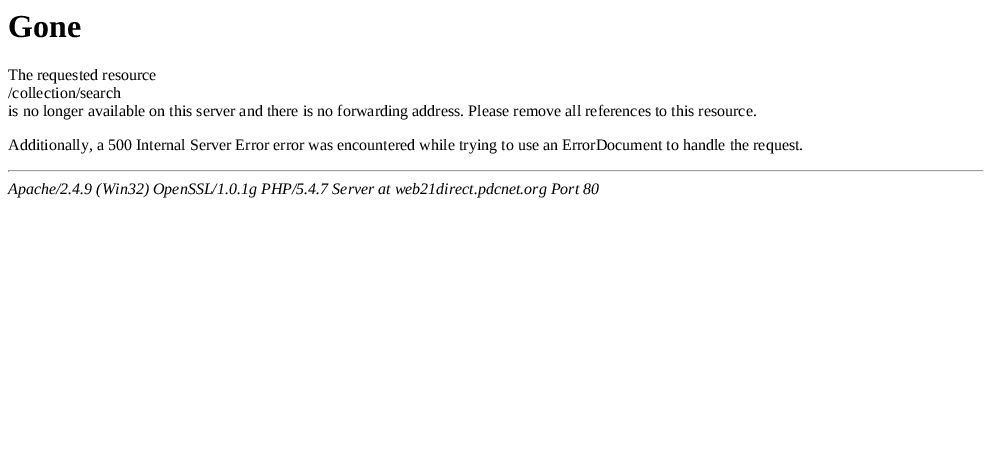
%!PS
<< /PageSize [992 466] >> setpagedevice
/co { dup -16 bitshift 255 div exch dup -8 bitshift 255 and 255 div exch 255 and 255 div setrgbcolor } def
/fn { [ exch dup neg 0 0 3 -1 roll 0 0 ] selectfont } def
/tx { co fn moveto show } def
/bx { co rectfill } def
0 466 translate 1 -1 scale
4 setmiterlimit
0 0 992 466 16#FFFFFF bx
8 170 976 1 16#9F9F9F bx
983 170 1 2 16#EEEEEE bx
8 171 976 1 16#EEEEEE bx
8 170 1 2 16#9F9F9F bx
(Gone) 8 37 /LiberationSerif-Bold 32 16#000000 tx
(The requested resource) 8 80 /LiberationSerif-Regular 16 16#000000 tx
(/collection/search) 8 98 /LiberationSerif-Regular 16 16#000000 tx
(is no longer available on this server and there is no forwarding address. Please remove all references to this resource.) 8 116 /LiberationSerif-Regular 16 16#000000 tx
(Additionally, a 500 Internal Server Error error was encountered while trying to use an ErrorDocument to handle the request.) 8 150 /LiberationSerif-Regular 16 16#000000 tx
(Apache/2.4.9 \(Win32\) OpenSSL/1.0.1g PHP/5.4.7 Server at web21direct.pdcnet.org Port 80) 8 194 /LiberationSerif-Italic 16 16#000000 tx
showpage
